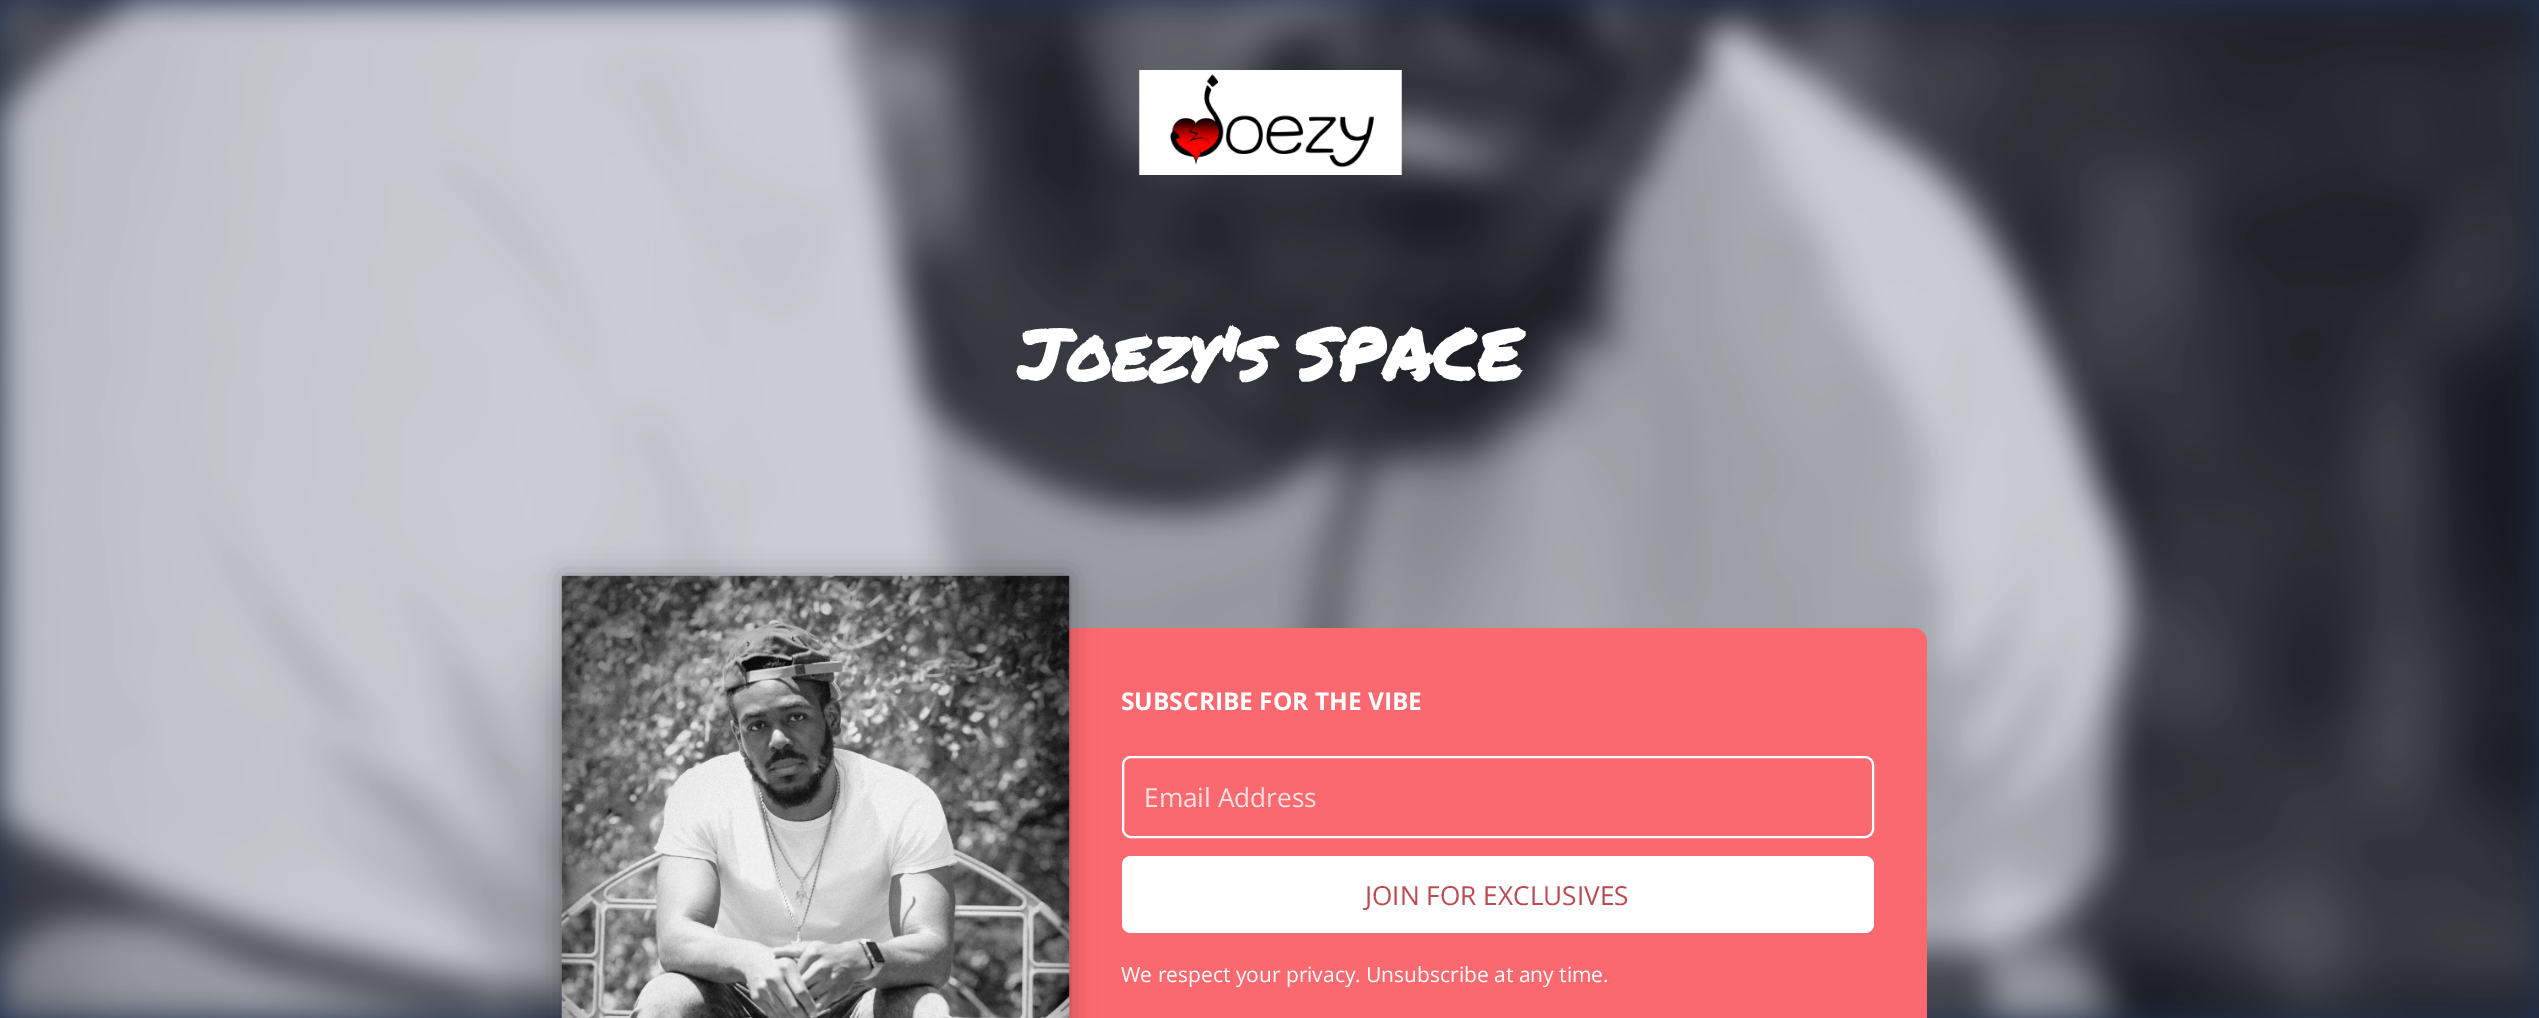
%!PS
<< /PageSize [2539 1018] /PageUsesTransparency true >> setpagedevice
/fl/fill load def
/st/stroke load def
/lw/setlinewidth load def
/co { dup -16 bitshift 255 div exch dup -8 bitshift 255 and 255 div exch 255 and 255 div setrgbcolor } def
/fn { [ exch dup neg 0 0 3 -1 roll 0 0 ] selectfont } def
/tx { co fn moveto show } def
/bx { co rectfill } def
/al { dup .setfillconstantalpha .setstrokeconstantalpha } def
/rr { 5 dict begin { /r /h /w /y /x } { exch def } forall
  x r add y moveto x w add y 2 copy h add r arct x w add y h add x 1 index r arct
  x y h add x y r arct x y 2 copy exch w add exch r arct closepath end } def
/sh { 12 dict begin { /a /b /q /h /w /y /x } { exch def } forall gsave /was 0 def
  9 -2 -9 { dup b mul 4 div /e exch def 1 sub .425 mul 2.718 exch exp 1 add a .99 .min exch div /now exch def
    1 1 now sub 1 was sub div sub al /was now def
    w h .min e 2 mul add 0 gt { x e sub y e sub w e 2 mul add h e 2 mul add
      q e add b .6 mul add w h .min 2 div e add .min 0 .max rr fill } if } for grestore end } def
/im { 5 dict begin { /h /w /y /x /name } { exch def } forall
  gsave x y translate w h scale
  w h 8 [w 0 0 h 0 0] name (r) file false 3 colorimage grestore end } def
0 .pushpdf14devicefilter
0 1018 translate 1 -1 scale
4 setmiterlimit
0 0 2539 1018 16#212F4F bx
(media/1.raw) 0 0 2539 1018 im
(media/2.raw) 1139 70 263 105 im
16#FB6970 co
614 628 1313 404 14 rr fl
16#000000 co
562 576 507 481 0 13 .3 sh
(media/3.raw) 561 575 509 443 im
16#FFFFFF co
2 lw
1123 757 750 80 8 rr st
1122 856 752 77 9 rr fl
(Joezy's SPACE) 1018 381 /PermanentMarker-Bold 71.75 16#FFFFFF tx
(SUBSCRIBE FOR THE VIBE) 1121 710 /OpenSans-Bold 24.5 16#FFFFFF tx
(Email Address) 1144 807 /OpenSans-Regular 26.25 16#FEE1E2 tx
(JOIN FOR EXCLUSIVES) 1365 905 /OpenSans-Regular 26.25 16#BC4A50 tx
(We respect your privacy. Unsubscribe at any time.) 1121 982 /OpenSans-Regular 21 16#FFFFFF tx
.poppdf14devicefilter showpage
